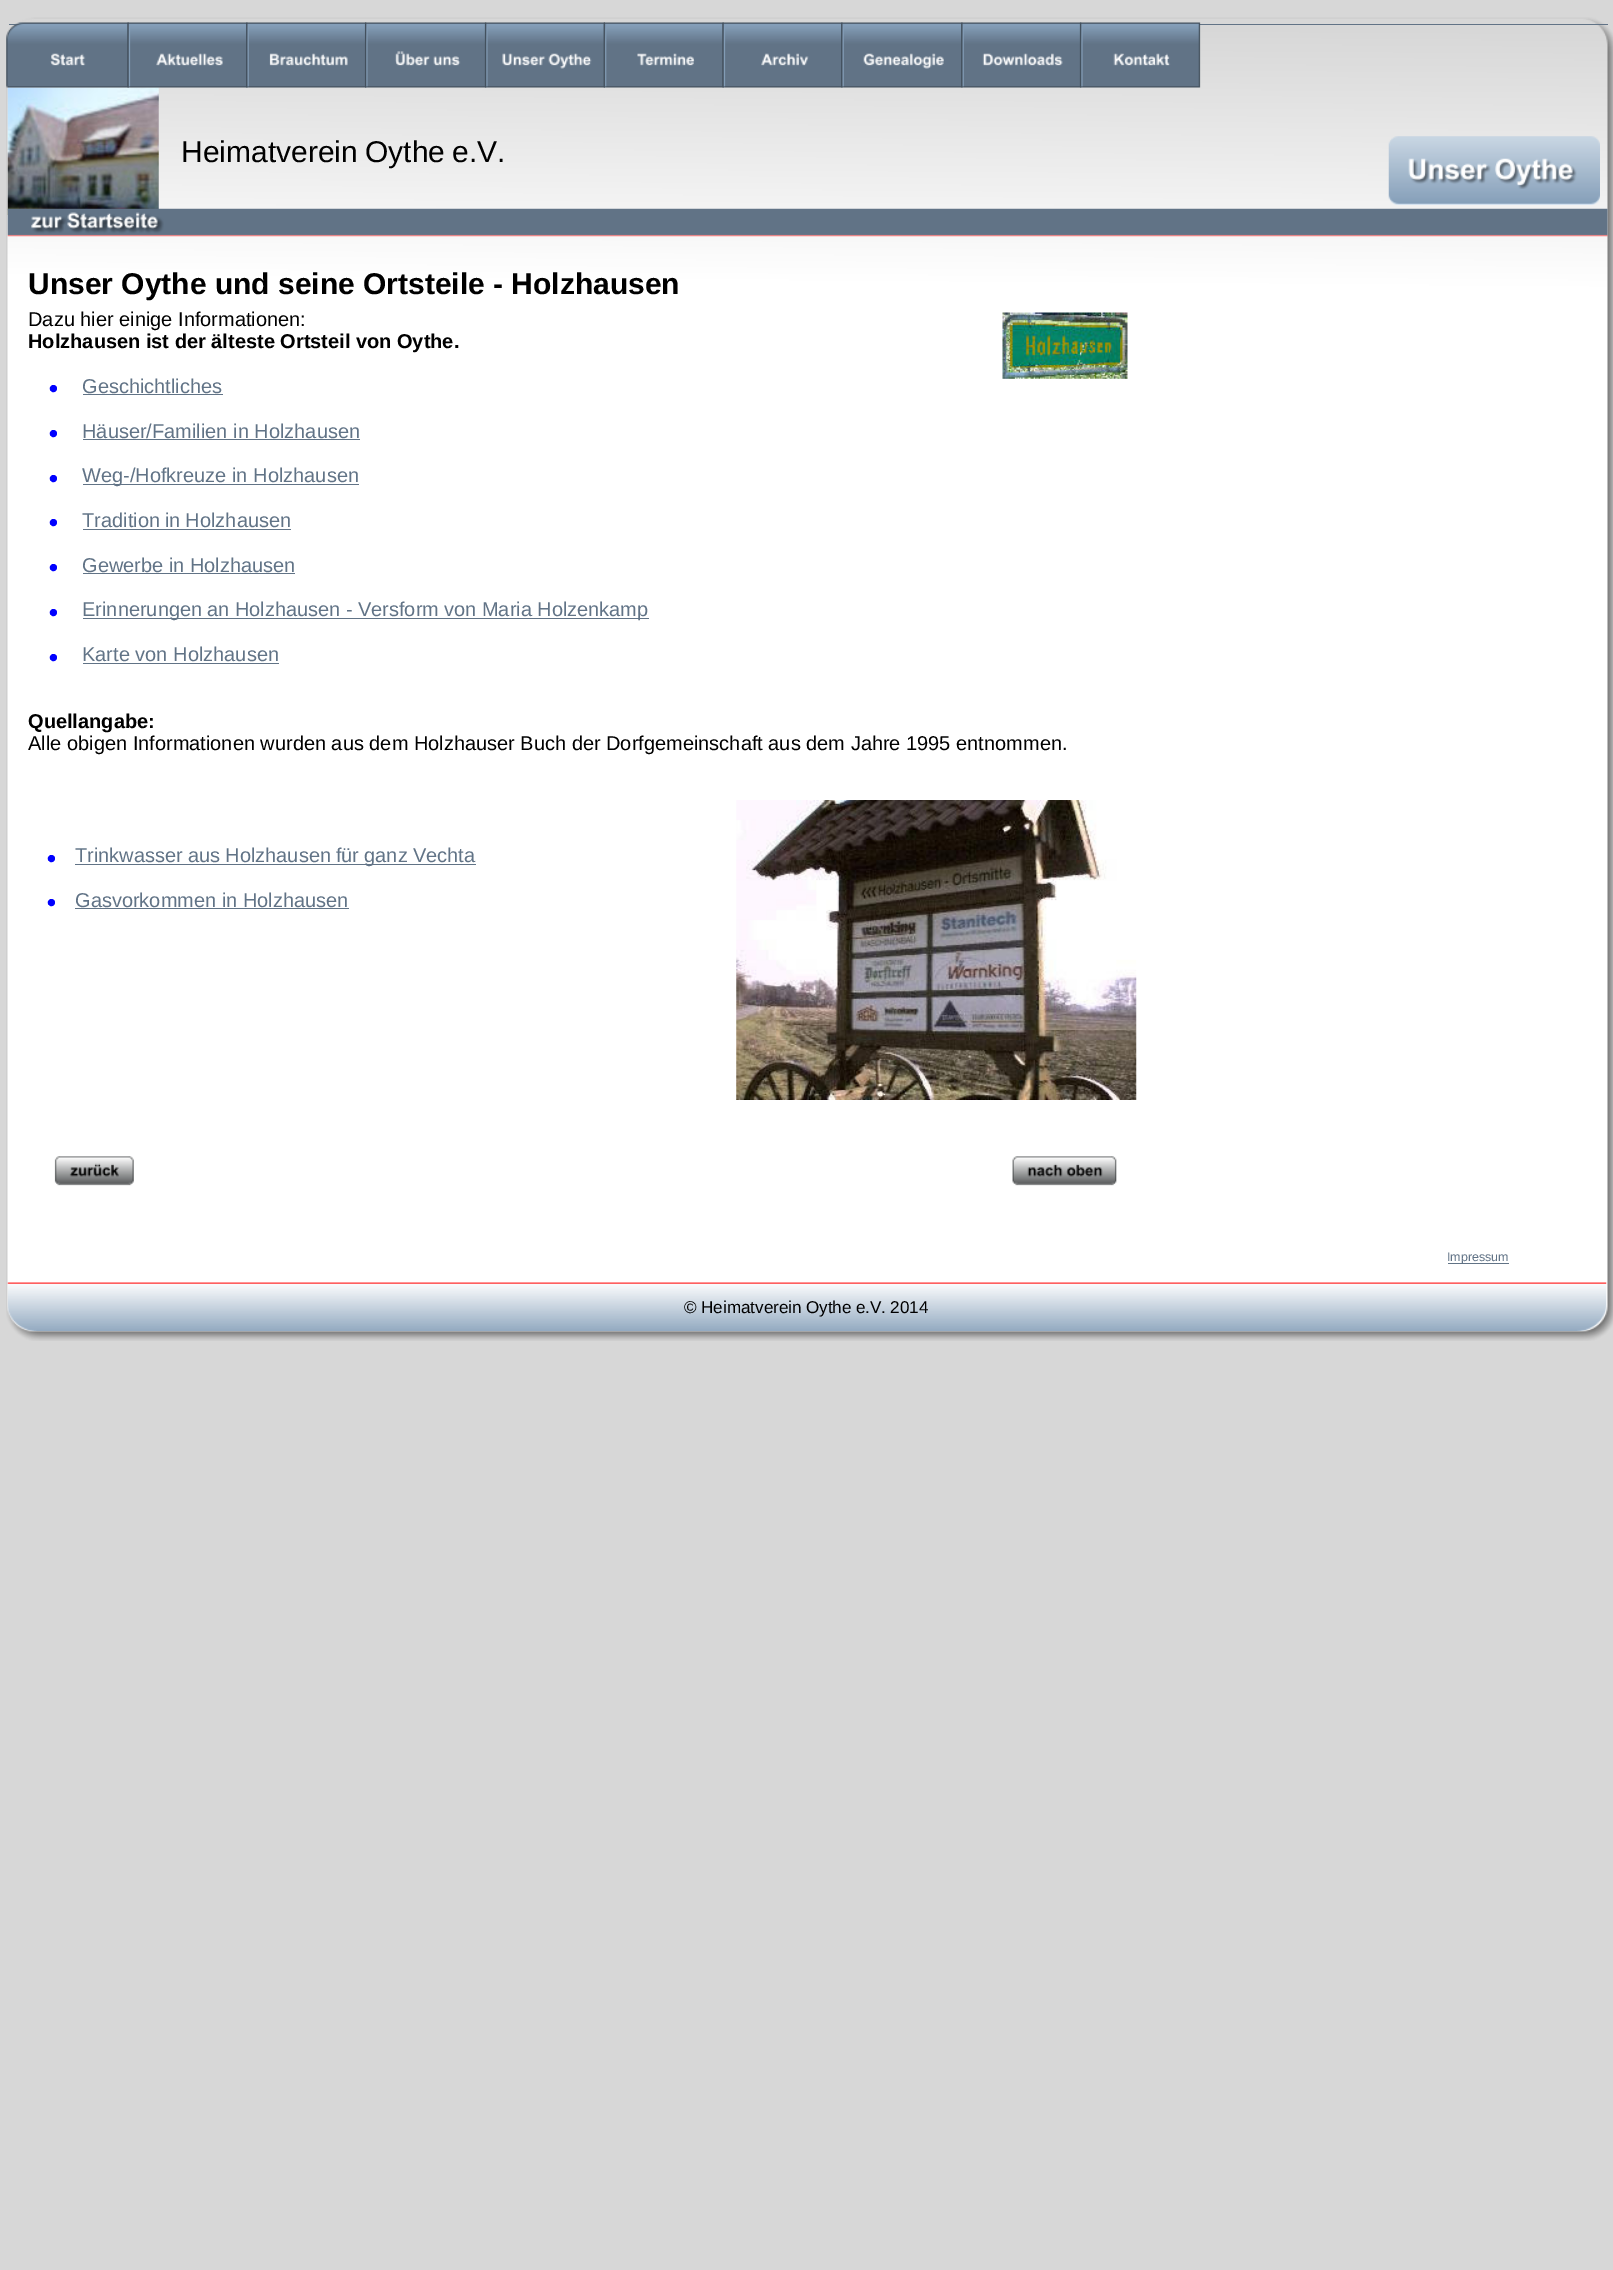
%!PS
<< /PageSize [1613 2270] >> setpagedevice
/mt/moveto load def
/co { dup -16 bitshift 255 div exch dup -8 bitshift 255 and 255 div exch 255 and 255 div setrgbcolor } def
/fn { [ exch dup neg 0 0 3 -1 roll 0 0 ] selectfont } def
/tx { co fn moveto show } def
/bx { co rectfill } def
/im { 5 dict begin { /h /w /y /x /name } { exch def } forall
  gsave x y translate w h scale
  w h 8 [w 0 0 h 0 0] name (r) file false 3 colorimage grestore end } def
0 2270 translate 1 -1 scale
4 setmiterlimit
0 0 1613 2270 16#D7D7D7 bx
(media/1.raw) 6 17 1607 1324 im
9 24 1599 1 16#617386 bx
(media/12.raw) 7 87 152 128 im
(media/2.raw) 6 22 123 66 im
(media/3.raw) 127 22 121 66 im
(media/4.raw) 246 22 121 66 im
(media/5.raw) 365 22 122 66 im
(media/6.raw) 484 22 121 66 im
(media/7.raw) 603 22 121 66 im
(media/8.raw) 722 22 121 66 im
(media/9.raw) 841 22 122 66 im
(media/10.raw) 961 22 121 66 im
(media/11.raw) 1079 22 122 66 im
(media/13.raw) 1388 136 212 69 im
(media/14.raw) 7 208 1601 29 im
83 394 140 1 16#617386 bx
83 439 277 1 16#617386 bx
83 484 276 1 16#617386 bx
83 529 208 1 16#617386 bx
83 573 212 1 16#617386 bx
83 618 566 1 16#617386 bx
83 663 196 1 16#617386 bx
75 864 401 1 16#617386 bx
75 908 274 1 16#617386 bx
(media/15.raw) 1002 312 126 67 im
(media/16.raw) 736 800 401 300 im
(media/17.raw) 54 1156 80 30 im
(media/18.raw) 1012 1156 105 30 im
1448 1263 61 1 16#617386 bx
(media/19.raw) 7 1282 1600 49 im
/LiberationSans-Regular 30 fn
16#000000 co
181 162 mt -1 0 32 (Heimatverein Oythe e.V.) widthshow
(Unser Oythe und seine Ortsteile - Holzhausen) 28 294 /LiberationSans-Bold 30 16#000000 tx
(Dazu hier einige Informationen:) 28 326 /LiberationSans-Regular 20 16#000000 tx
(Holzhausen ist der älteste Ortsteil von Oythe.) 28 348 /LiberationSans-Bold 20 16#000000 tx
(•) 48 395 /Verdana-Regular 20 16#0000FF tx
(Geschichtliches) 82 393 /LiberationSans-Regular 20 16#617386 tx
(•) 48 440 /Verdana-Regular 20 16#0000FF tx
(Häuser/Familien in Holzhausen) 82 438 /LiberationSans-Regular 20 16#617386 tx
(•) 48 485 /Verdana-Regular 20 16#0000FF tx
(Weg-/Hofkreuze in Holzhausen) 82 482 /LiberationSans-Regular 20 16#617386 tx
(•) 48 529 /Verdana-Regular 20 16#0000FF tx
/LiberationSans-Regular 20 fn
16#617386 co
82 527 mt -.5 0 32 (Tradition in Holzhausen) widthshow
(•) 48 574 /Verdana-Regular 20 16#0000FF tx
(Gewerbe in Holzhausen) 82 572 /LiberationSans-Regular 20 16#617386 tx
(•) 48 619 /Verdana-Regular 20 16#0000FF tx
/LiberationSans-Regular 20 fn
16#617386 co
82 616 mt -.25 0 32 (Erinnerungen an Holzhausen - Versform von Maria Holzenkamp) widthshow
(•) 48 664 /Verdana-Regular 20 16#0000FF tx
(Karte von Holzhausen) 82 661 /LiberationSans-Regular 20 16#617386 tx
(Quellangabe:) 28 728 /LiberationSans-Bold 20 16#000000 tx
(Alle obigen Informationen wurden aus dem Holzhauser Buch der Dorfgemeinschaft aus dem Jahre 1995 entnommen.) 28 750 /LiberationSans-Regular 20 16#000000 tx
(•) 46 865 /Verdana-Regular 20 16#0000FF tx
/LiberationSans-Regular 20 fn
16#617386 co
75 862 mt -.5 0 32 (Trinkwasser aus Holzhausen für ganz Vechta) widthshow
(•) 46 909 /Verdana-Regular 20 16#0000FF tx
(Gasvorkommen in Holzhausen) 75 907 /LiberationSans-Regular 20 16#617386 tx
(Impressum) 1447 1261 /LiberationSans-Regular 12.5 16#617386 tx
/LiberationSans-Regular 17.1 fn
16#000000 co
684 1313 mt -.5 0 32 (© Heimatverein Oythe e.V. 2014) widthshow
showpage
